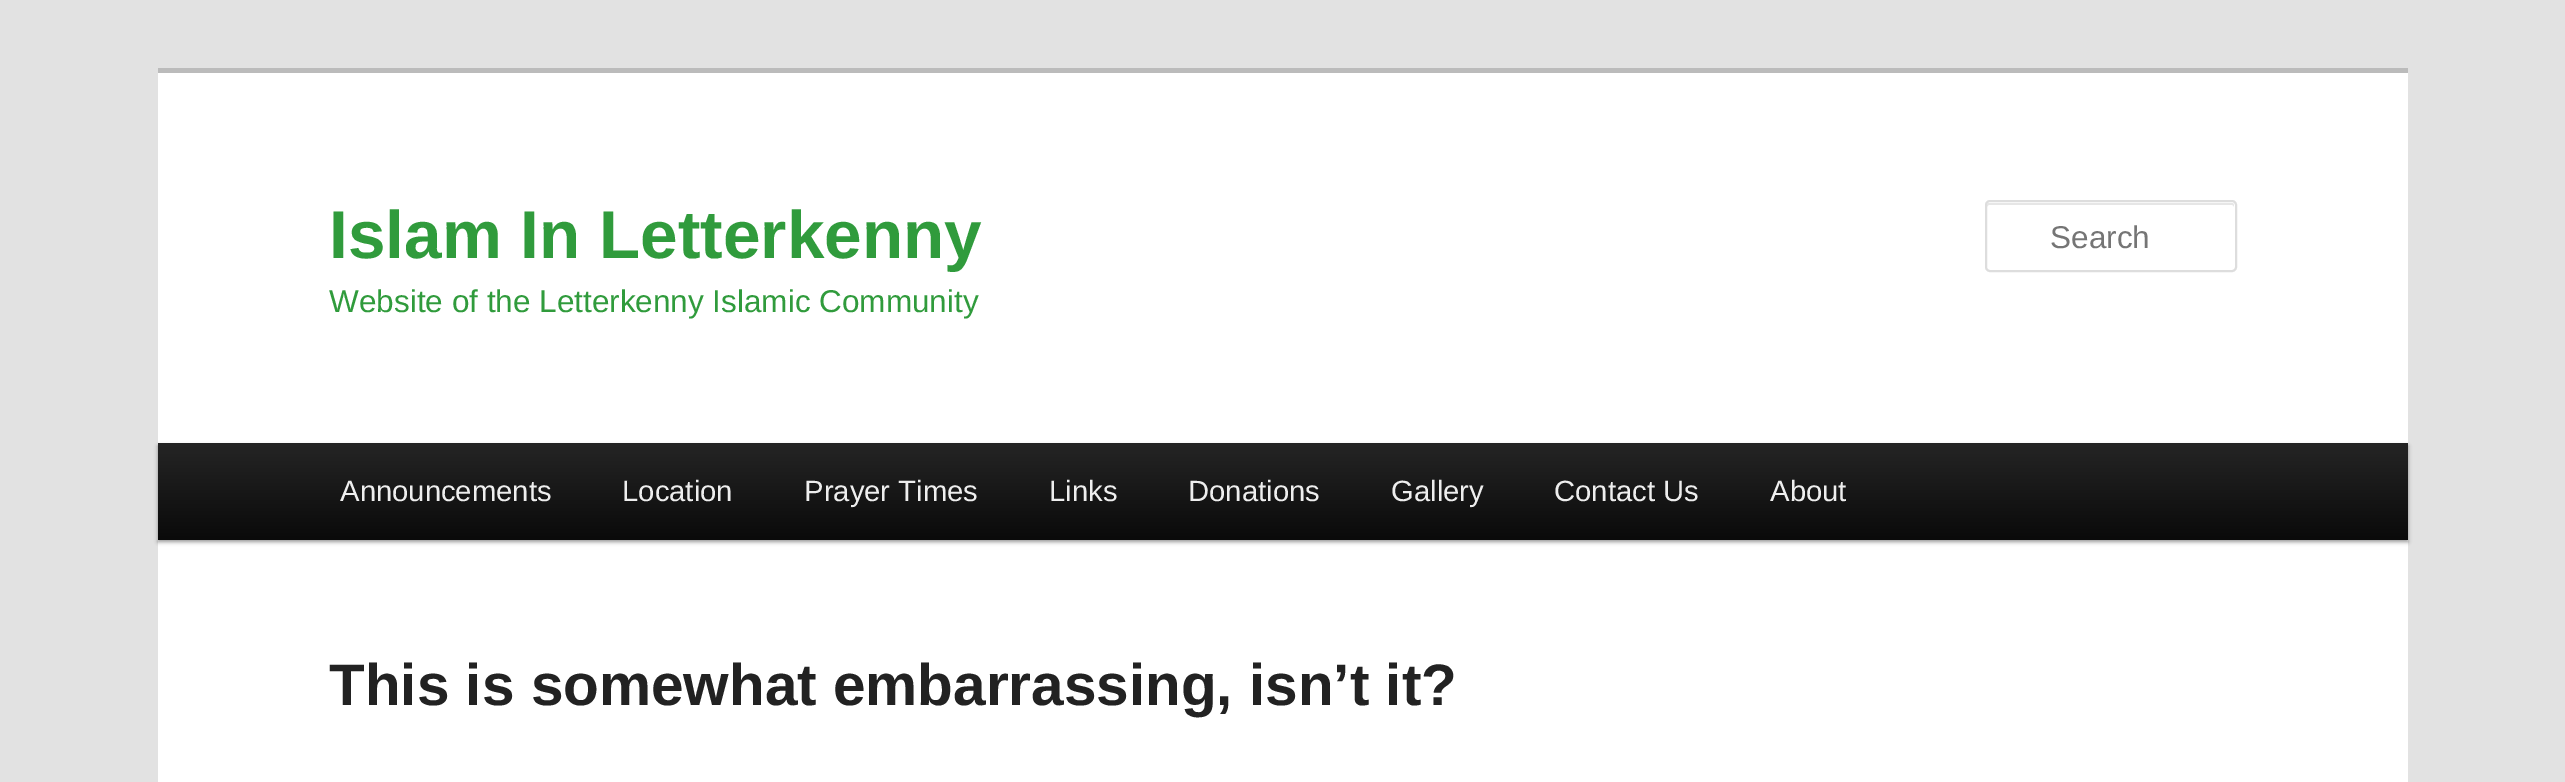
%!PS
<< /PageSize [2565 782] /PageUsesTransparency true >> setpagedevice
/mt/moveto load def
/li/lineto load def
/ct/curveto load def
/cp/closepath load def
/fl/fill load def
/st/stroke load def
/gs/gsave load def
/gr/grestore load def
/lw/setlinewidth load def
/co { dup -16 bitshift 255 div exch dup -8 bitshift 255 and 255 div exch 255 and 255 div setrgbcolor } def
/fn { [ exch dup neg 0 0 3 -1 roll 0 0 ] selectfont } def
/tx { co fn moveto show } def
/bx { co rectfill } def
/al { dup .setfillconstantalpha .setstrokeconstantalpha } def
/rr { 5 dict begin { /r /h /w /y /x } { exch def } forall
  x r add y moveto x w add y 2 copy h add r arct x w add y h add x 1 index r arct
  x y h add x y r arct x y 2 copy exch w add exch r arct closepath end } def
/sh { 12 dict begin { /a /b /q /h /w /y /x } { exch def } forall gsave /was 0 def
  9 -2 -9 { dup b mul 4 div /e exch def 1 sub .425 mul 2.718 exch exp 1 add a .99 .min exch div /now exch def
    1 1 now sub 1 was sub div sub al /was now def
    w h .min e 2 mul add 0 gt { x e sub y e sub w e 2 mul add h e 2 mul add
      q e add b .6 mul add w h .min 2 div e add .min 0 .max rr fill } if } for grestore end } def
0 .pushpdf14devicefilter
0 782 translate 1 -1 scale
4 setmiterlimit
0 0 2565 782 16#E2E2E2 bx
158 73 2250 709 16#FFFFFF bx
158 68 2250 5 16#BBBBBB bx
16#E6E6E6 co
1989 205 mt 2232 205 li 2233 205 2234 206 2234 207 ct 2234 205 2234 203 2232 203 ct 1989 203 li 1987 203 1987 205 1987 207 ct 1987 206 1988 205 1989 205 ct cp fl
16#DDDDDD co
2 lw
1986 201 250 70 4 rr st
16#000000 co
158 446 2250 96 0 2 .4 sh
gs 158 443 mt 2408 443 li 2408 540 li 158 540 li cp clip newpath
<< /ShadingType 2 /ColorSpace /DeviceRGB /Coords [1283 443 1283 540] /Extend [true true] /Function << /FunctionType 2 /Domain [0 1] /C0 [.145 .145 .145] /C1 [.039 .039 .039] /N 1 >> >> shfill gr
(Islam In Letterkenny) 329 258 /LiberationSans-Bold 67.5 16#309B3C tx
(Website of the Letterkenny Islamic Community) 329 312 /LiberationSans-Regular 31.5 16#309B3C tx
(Search) 2050 248 /LiberationSans-Regular 31.5 16#757575 tx
(Announcements) 340 501 /LiberationSans-Regular 29.25 16#EEEEEE tx
(Location) 622 501 /LiberationSans-Regular 29.25 16#EEEEEE tx
(Prayer Times) 804 501 /LiberationSans-Regular 29.25 16#EEEEEE tx
(Links) 1049 501 /LiberationSans-Regular 29.25 16#EEEEEE tx
(Donations) 1188 501 /LiberationSans-Regular 29.25 16#EEEEEE tx
(Gallery) 1391 501 /LiberationSans-Regular 29.25 16#EEEEEE tx
(Contact Us) 1554 501 /LiberationSans-Regular 29.25 16#EEEEEE tx
(About) 1770 501 /LiberationSans-Regular 29.25 16#EEEEEE tx
(This is somewhat embarrassing, isn’t it?) 329 705 /LiberationSans-Bold 58.5 16#222222 tx
.poppdf14devicefilter showpage
